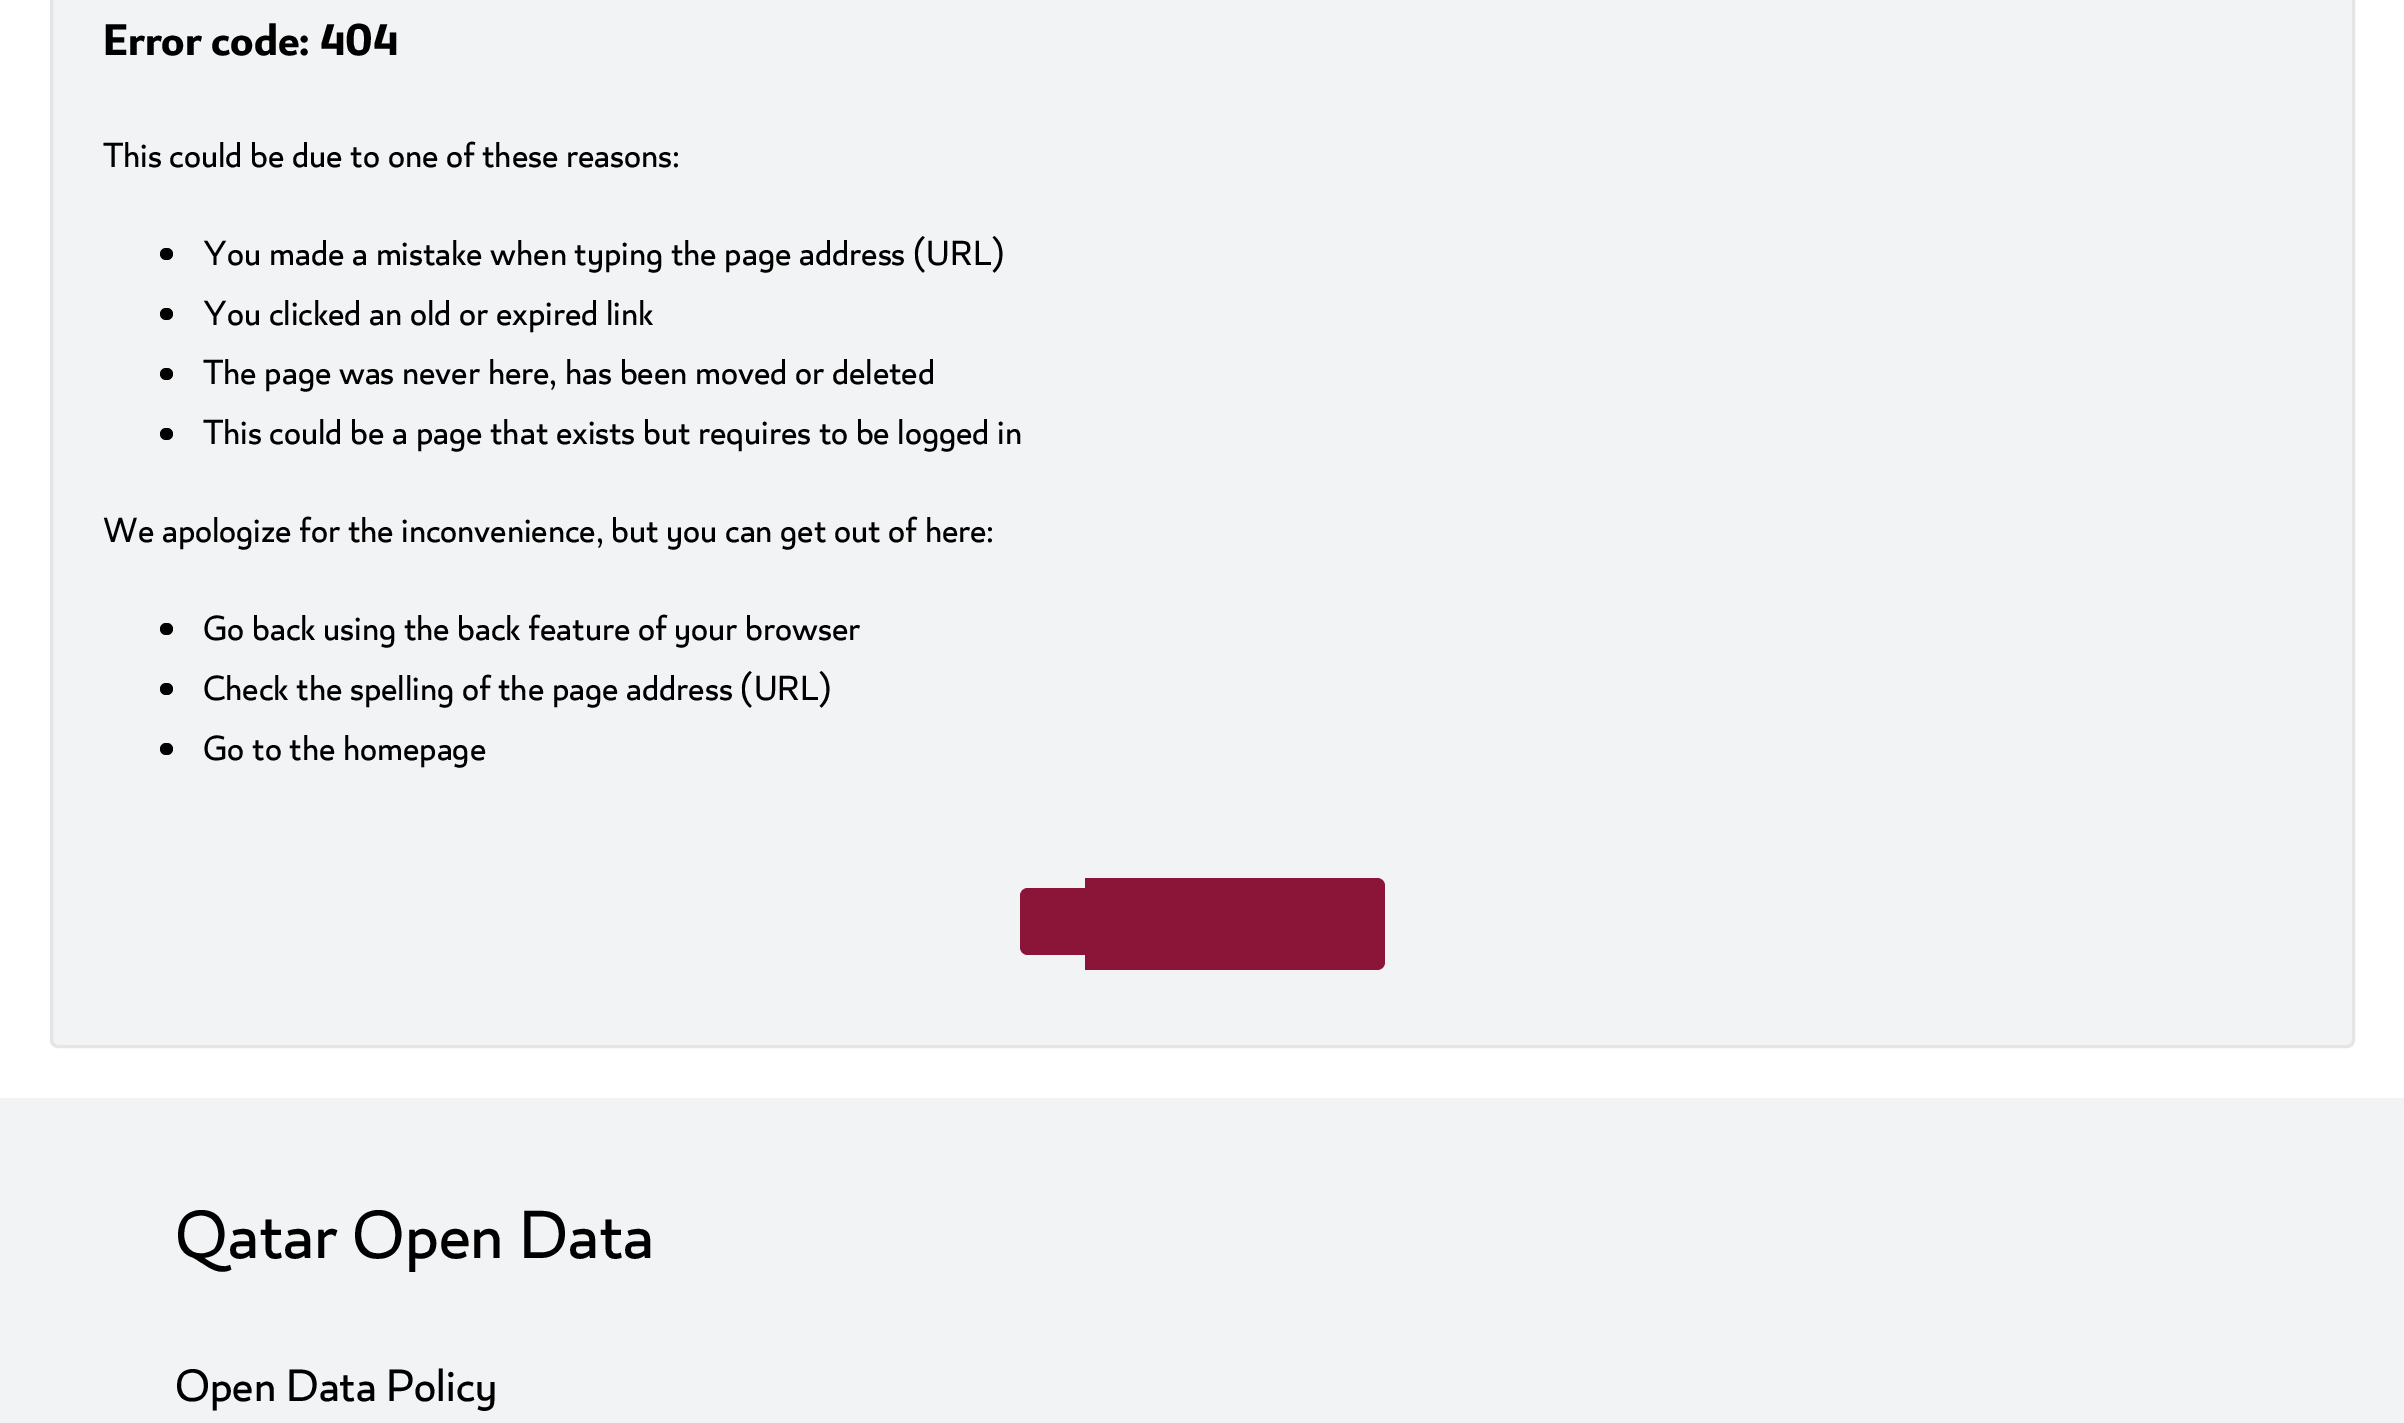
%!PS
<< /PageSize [2404 1423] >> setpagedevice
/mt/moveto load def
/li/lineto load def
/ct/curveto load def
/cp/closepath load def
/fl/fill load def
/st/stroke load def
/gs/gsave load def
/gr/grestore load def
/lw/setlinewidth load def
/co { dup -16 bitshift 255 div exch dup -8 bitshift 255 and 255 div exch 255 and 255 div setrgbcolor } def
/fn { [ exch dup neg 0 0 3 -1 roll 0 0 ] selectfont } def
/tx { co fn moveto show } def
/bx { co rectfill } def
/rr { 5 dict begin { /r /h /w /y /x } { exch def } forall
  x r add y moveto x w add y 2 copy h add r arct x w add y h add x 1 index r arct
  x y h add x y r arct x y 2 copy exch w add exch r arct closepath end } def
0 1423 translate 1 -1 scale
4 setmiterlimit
0 0 2404 1423 16#FFFFFF bx
16#F2F3F4 co
51.5 -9.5 2302 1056 6.5 rr gs fl gr
16#E5E5E5 co
3 lw
st
16#000000 co
160 248 13 12 6 rr fl
160 308 13 12 6 rr fl
160 368 13 12 6 rr fl
160 428 13 12 6 rr fl
160 623 13 12 6 rr fl
160 683 13 12 6 rr fl
160 743 13 12 6 rr fl
16#8A1538 co
1028 888 mt 1085 888 li 1085 955 li 1028 955 li 1023.5 955 1020 951.5 1020 947 ct 1020 896 li 1020 891.5 1023.5 888 1028 888 ct cp fl
1085 878 mt 1377 878 li 1381.5 878 1385 881.5 1385 886 ct 1385 962 li 1385 966.5 1381.5 970 1377 970 ct 1085 970 li cp fl
0 1098 2404 325 16#F2F3F4 bx
(Error code: 404) 103 55 /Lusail-Bold 49 16#000000 tx
(This could be due to one of these reasons:) 103 167 /Lusail-Regular 38.5 16#000000 tx
(You made a mistake when typing the page address \(URL\)) 203 265 /Lusail-Regular 38.5 16#000000 tx
(You clicked an old or expired link) 203 325 /Lusail-Regular 38.5 16#000000 tx
(The page was never here, has been moved or deleted) 203 384 /Lusail-Regular 38.5 16#000000 tx
(This could be a page that exists but requires to be logged in) 203 444 /Lusail-Regular 38.5 16#000000 tx
(We apologize for the inconvenience, but you can get out of here:) 103 542 /Lusail-Regular 38.5 16#000000 tx
(Go back using the back feature of your browser) 203 640 /Lusail-Regular 38.5 16#000000 tx
(Check the spelling of the page address \(URL\)) 203 700 /Lusail-Regular 38.5 16#000000 tx
(Go to the homepage) 203 760 /Lusail-Regular 38.5 16#000000 tx
(Qatar Open Data) 175 1258 /Lusail-Regular 75 16#000000 tx
(Open Data Policy) 175 1401 /Lusail-Regular 50 16#000000 tx
showpage
